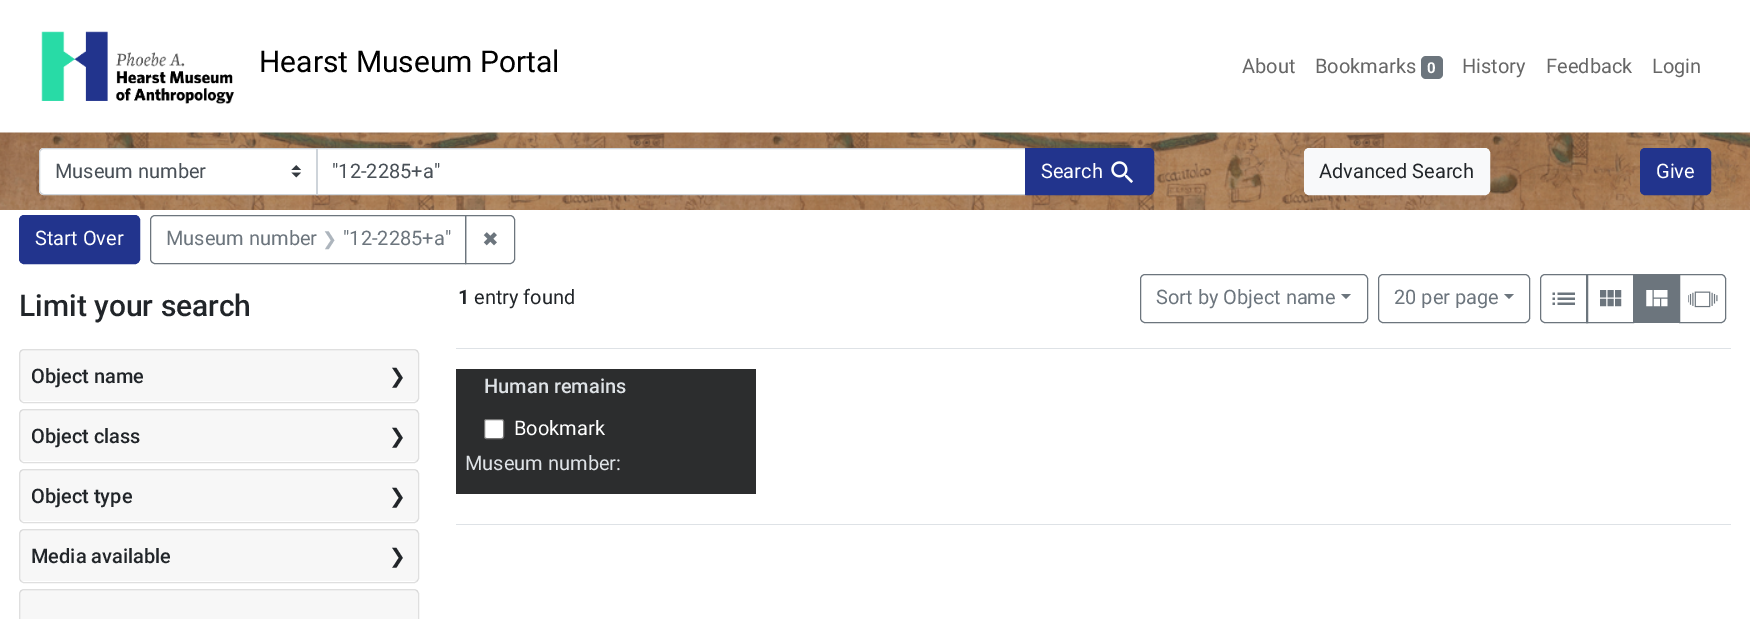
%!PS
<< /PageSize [1750 619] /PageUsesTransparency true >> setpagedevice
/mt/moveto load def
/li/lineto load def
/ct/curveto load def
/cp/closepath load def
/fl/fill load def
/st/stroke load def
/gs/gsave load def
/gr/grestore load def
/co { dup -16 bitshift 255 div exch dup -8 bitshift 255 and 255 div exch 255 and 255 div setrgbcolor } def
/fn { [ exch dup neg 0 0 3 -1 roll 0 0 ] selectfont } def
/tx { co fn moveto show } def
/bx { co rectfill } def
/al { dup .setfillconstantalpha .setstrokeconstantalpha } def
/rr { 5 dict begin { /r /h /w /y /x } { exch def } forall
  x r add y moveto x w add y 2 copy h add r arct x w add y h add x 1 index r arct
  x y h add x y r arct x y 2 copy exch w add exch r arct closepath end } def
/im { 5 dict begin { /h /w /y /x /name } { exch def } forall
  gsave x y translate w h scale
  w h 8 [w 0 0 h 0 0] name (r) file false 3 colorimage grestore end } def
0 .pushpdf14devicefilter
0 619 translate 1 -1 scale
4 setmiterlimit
0 0 1750 619 16#FFFFFF bx
(media/1.raw) 41 31 194 73 im
16#6C757D co
1421 56 22 23 5 rr fl
(media/2.raw) 0 132 1750 78 im
16#FFFFFF co
44 148 mt 318 148 li 318 195 li 44 195 li 41 195 39 193 39 190 ct 39 153 li 39 150 41 148 44 148 ct cp fl
(media/3.raw) 291 165 10 13 im
16#CED4DA co
44 148.5 mt 317.5 148.5 li 317.5 194.5 li 44 194.5 li 41.5 194.5 39.5 192.5 39.5 190 ct 39.5 153 li 39.5 150.5 41.5 148.5 44 148.5 ct cp st
318 149 707 45 16#FFFFFF bx
16#CED4DA co
316.5 148.5 709 46 rectstroke
16#22348D co
1025.5 148.5 mt 1149 148.5 li 1151.5 148.5 1153.5 150.5 1153.5 153 ct 1153.5 190 li 1153.5 192.5 1151.5 194.5 1149 194.5 ct 1025.5 194.5 li cp gs fl gr
st
(media/4.raw) 1111 161 22 22 im
16#F8F9FA co
1304.5 148.5 185 46 4.5 rr gs fl gr
st
16#22348D co
1640.5 148.5 70 46 4.5 rr gs fl gr
st
19.5 215.5 120 48 4.5 rr gs fl gr
st
16#6C757D co
155 215.5 mt 465.5 215.5 li 465.5 263.5 li 155 263.5 li 152.5 263.5 150.5 261.5 150.5 259 ct 150.5 220 li 150.5 217.5 152.5 215.5 155 215.5 ct cp st
465.5 215.5 mt 510 215.5 li 512.5 215.5 514.5 217.5 514.5 220 ct 514.5 259 li 514.5 261.5 512.5 263.5 510 263.5 ct 465.5 263.5 li cp st
16#DFDFDF co
19.5 349.5 399 53 4.5 rr st
0.03 al
20 350 398 51 16#000000 bx
1 al
16#DFDFDF co
19.5 409.5 399 53 4.5 rr st
0.03 al
20 410 398 51 16#000000 bx
1 al
16#DFDFDF co
19.5 469.5 399 53 4.5 rr st
0.03 al
20 470 398 51 16#000000 bx
1 al
16#DFDFDF co
19.5 529.5 399 53 4.5 rr st
0.03 al
20 530 398 51 16#000000 bx
1 al
16#DFDFDF co
19.5 589.5 399 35 4.5 rr st
0.03 al
20 590 398 29 16#000000 bx
1 al
456 348 1275 1 16#DEE2E6 bx
16#6C757D co
1140.5 274.5 227 48 4.5 rr st
1341 294 mt 1351 294 li 1346 299 li cp fl
1378.5 274.5 151 48 4.5 rr st
1504 294 mt 1514 294 li 1509 299 li cp fl
1545 274.5 mt 1587.5 274.5 li 1587.5 322.5 li 1545 322.5 li 1542.5 322.5 1540.5 320.5 1540.5 318 ct 1540.5 279 li 1540.5 276.5 1542.5 274.5 1545 274.5 ct cp st
(media/5.raw) 1552 292 23 13 im
1586.5 274.5 47 48 rectstroke
(media/6.raw) 1600 290 22 17 im
1634 274 45 49 16#6C757D bx
(media/7.raw) 1646 290 22 17 im
1679.5 274.5 mt 1721 274.5 li 1723.5 274.5 1725.5 276.5 1725.5 279 ct 1725.5 318 li 1725.5 320.5 1723.5 322.5 1721 322.5 ct 1679.5 322.5 li cp st
(media/8.raw) 1688 291 30 17 im
456 524 1275 1 16#DEE2E6 bx
456 369 300 125 16#2C2D2E bx
16#FFFFFF co
484.5 419.5 19 19 2 rr gs fl gr
16#767676 co
st
(Hearst Museum Portal) 259 72 /Roboto-Regular 30 16#000000 tx
(About) 1242 73 /Roboto-Regular 20 16#666666 tx
(Bookmarks) 1315 73 /Roboto-Regular 20 16#666666 tx
(0) 1427 73 /Roboto-Bold 15 16#FFFFFF tx
(History) 1462 73 /Roboto-Regular 20 16#666666 tx
(Feedback) 1546 73 /Roboto-Regular 20 16#666666 tx
(Login) 1652 73 /Roboto-Regular 20 16#666666 tx
(Museum number) 55 178 /Roboto-Regular 20 16#495057 tx
("12-2285+a") 332 178 /Roboto-Regular 20 16#495057 tx
(Search) 1041 178 /Roboto-Regular 20 16#FFFFFF tx
(Advanced Search) 1319 178 /Roboto-Regular 20 16#212529 tx
(Give) 1656 178 /Roboto-Regular 20 16#FFFFFF tx
(Start Over) 35 245 /Roboto-Regular 20 16#FFFFFF tx
(Museum number) 166 245 /Roboto-Regular 20 16#6C757D tx
(❯) 322 245 /DejaVuSans-Regular 18 16#ADB5BD tx
("12-2285+a") 343 245 /Roboto-Regular 20 16#6C757D tx
(✖) 482 246 /DejaVuSans-Regular 20 16#6C757D tx
(Limit your search) 19 316 /Roboto-Medium 30 16#212529 tx
(Object name) 31 383 /Roboto-Medium 20 16#212529 tx
(❯) 389 383 /DejaVuSans-Regular 20 16#212529 tx
(Object class) 31 443 /Roboto-Medium 20 16#212529 tx
(❯) 389 443 /DejaVuSans-Regular 20 16#212529 tx
(Object type) 31 503 /Roboto-Medium 20 16#212529 tx
(❯) 389 503 /DejaVuSans-Regular 20 16#212529 tx
(Media available) 31 563 /Roboto-Medium 20 16#212529 tx
(❯) 389 563 /DejaVuSans-Regular 20 16#212529 tx
(1) 458 304 /Roboto-Bold 20 16#212529 tx
(entry found) 474 304 /Roboto-Regular 20 16#212529 tx
(Sort by Object name) 1156 304 /Roboto-Regular 20 16#6C757D tx
(20 per page) 1394 304 /Roboto-Regular 20 16#6C757D tx
(Human remains) 484 393 /Roboto-Medium 20 16#DEE2E6 tx
(Bookmark) 514 435 /Roboto-Regular 20 16#FFFFFF tx
(Museum number:) 465 470 /Roboto-Regular 20 16#DEE2E6 tx
.poppdf14devicefilter showpage
